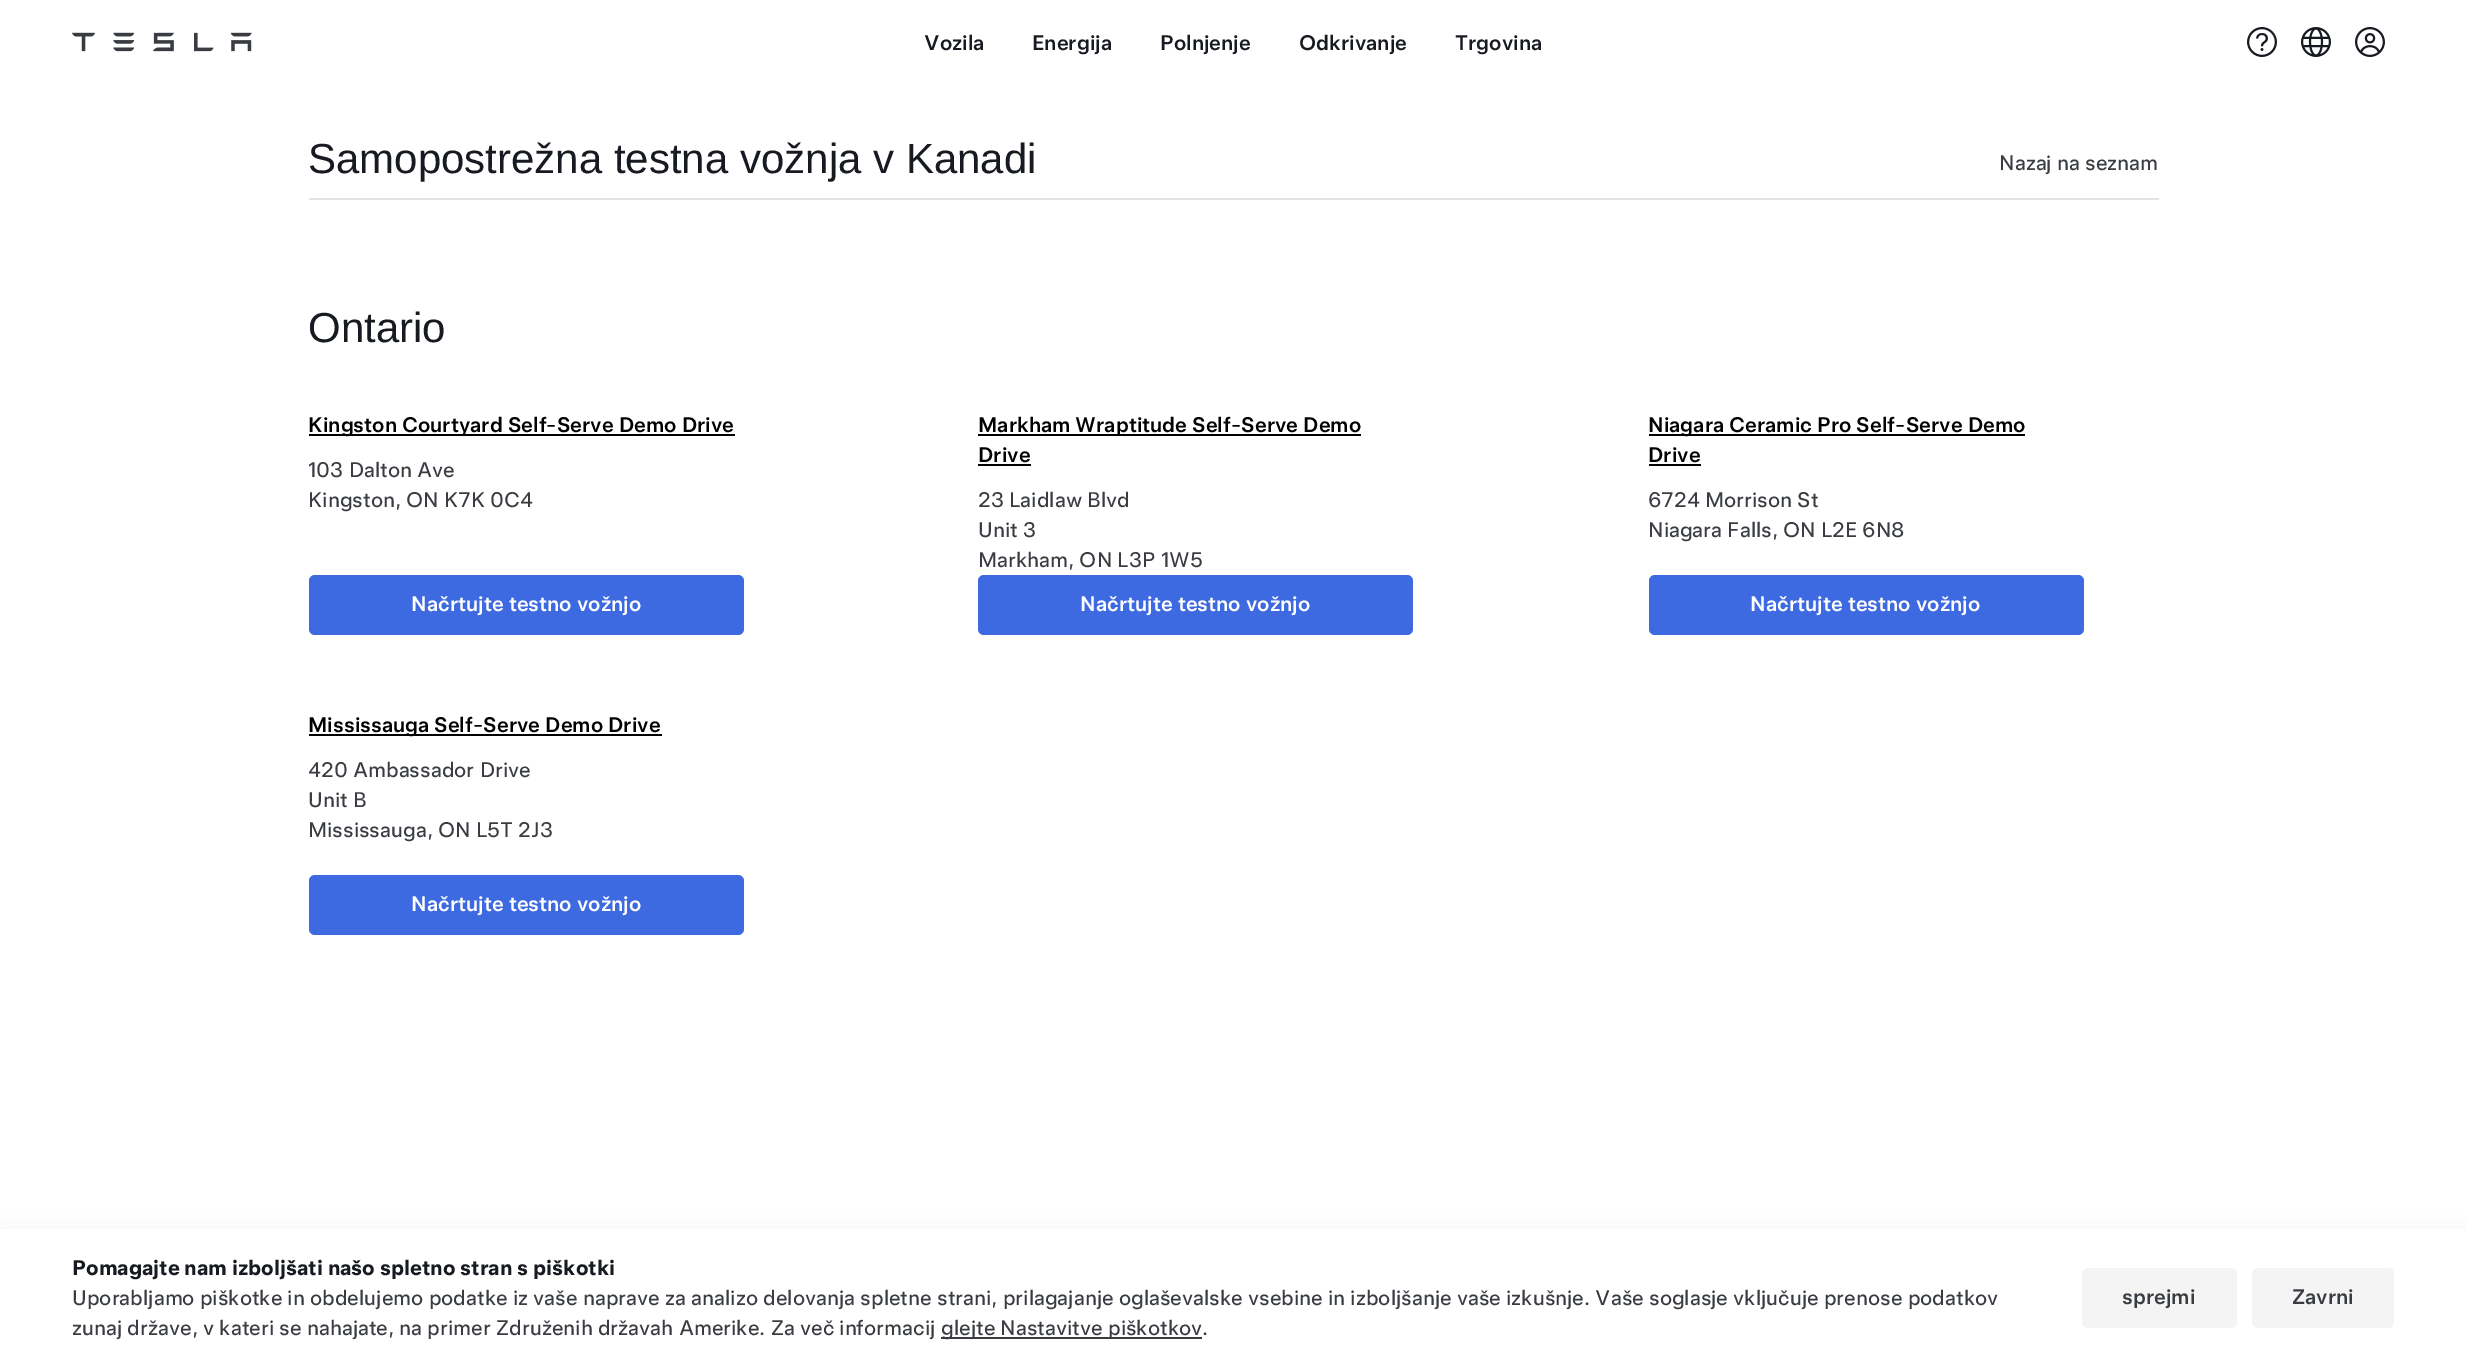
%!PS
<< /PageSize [2466 1366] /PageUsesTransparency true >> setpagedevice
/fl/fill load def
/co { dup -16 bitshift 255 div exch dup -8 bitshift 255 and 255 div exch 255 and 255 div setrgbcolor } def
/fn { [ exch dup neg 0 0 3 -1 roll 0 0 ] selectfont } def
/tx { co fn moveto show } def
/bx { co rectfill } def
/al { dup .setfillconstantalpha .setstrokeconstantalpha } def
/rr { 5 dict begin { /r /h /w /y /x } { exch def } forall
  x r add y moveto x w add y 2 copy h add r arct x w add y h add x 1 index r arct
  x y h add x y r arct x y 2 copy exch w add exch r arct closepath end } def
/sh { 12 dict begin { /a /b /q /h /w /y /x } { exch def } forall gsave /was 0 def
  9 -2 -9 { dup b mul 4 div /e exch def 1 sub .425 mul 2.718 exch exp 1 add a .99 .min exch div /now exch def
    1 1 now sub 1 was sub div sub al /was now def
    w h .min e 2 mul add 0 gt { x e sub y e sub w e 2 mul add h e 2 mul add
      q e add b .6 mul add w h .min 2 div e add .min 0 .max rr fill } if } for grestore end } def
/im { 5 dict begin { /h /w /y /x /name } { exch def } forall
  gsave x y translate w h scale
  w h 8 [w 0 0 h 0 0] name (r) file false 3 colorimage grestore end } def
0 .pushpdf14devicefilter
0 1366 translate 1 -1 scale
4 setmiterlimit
0 0 2466 1366 16#FFFFFF bx
(media/1.raw) 72 32 180 20 im
(media/2.raw) 2247 27 30 30 im
(media/3.raw) 2301 27 30 30 im
(media/4.raw) 2355 27 30 30 im
309 198 1850 2 16#E2E3E3 bx
309 434 426 2 16#000000 bx
16#3E6AE1 co
309 575 435 60 6 rr fl
978 434 383 2 16#000000 bx
978 464 53 2 16#000000 bx
16#3E6AE1 co
978 575 435 60 6 rr fl
1649 434 376 2 16#000000 bx
1649 464 52 2 16#000000 bx
16#3E6AE1 co
1649 575 435 60 6 rr fl
309 734 353 2 16#000000 bx
16#3E6AE1 co
309 875 435 60 6 rr fl
16#000000 co
0 1241 2466 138 0 12 .16 sh
0 1229 2466 137 16#FFFFFF bx
941 1337 261 2 16#393C41 bx
16#F4F4F4 co
2082 1268 155 60 6 rr fl
2252 1268 142 60 6 rr fl
(Vozila) 924 50 /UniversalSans-Medium 21 16#171A20 tx
(Energija) 1032 50 /UniversalSans-Medium 21 16#171A20 tx
(Polnjenje) 1160 50 /UniversalSans-Medium 21 16#171A20 tx
(Odkrivanje) 1299 50 /UniversalSans-Medium 21 16#171A20 tx
(Trgovina) 1455 50 /UniversalSans-Medium 21 16#171A20 tx
(Samopostrežna testna vožnja v Kanadi) 308 173 /LiberationSans-Regular 42 16#171A20 tx
(Nazaj na seznam) 1999 170 /UniversalSans-Regular 21 16#393C41 tx
(Ontario) 308 342 /LiberationSans-Regular 42 16#171A20 tx
(Kingston Courtyard Self-Serve Demo Drive) 308 432 /UniversalSans-Medium 21 16#000000 tx
(103 Dalton Ave) 308 477 /UniversalSans-Regular 21 16#393C41 tx
(Kingston, ON K7K 0C4) 308 507 /UniversalSans-Regular 21 16#393C41 tx
(Načrtujte testno vožnjo) 411 611 /UniversalSans-Medium 21 16#FFFFFF tx
(Markham Wraptitude Self-Serve Demo) 978 432 /UniversalSans-Medium 21 16#000000 tx
(Drive) 978 462 /UniversalSans-Medium 21 16#000000 tx
(23 Laidlaw Blvd) 978 507 /UniversalSans-Regular 21 16#393C41 tx
(Unit 3) 978 537 /UniversalSans-Regular 21 16#393C41 tx
(Markham, ON L3P 1W5) 978 567 /UniversalSans-Regular 21 16#393C41 tx
(Načrtujte testno vožnjo) 1080 611 /UniversalSans-Medium 21 16#FFFFFF tx
(Niagara Ceramic Pro Self-Serve Demo) 1648 432 /UniversalSans-Medium 21 16#000000 tx
(Drive) 1648 462 /UniversalSans-Medium 21 16#000000 tx
(6724 Morrison St) 1648 507 /UniversalSans-Regular 21 16#393C41 tx
(Niagara Falls, ON L2E 6N8) 1648 537 /UniversalSans-Regular 21 16#393C41 tx
(Načrtujte testno vožnjo) 1750 611 /UniversalSans-Medium 21 16#FFFFFF tx
(Mississauga Self-Serve Demo Drive) 308 732 /UniversalSans-Medium 21 16#000000 tx
(420 Ambassador Drive) 308 777 /UniversalSans-Regular 21 16#393C41 tx
(Unit B) 308 807 /UniversalSans-Regular 21 16#393C41 tx
(Mississauga, ON L5T 2J3) 308 837 /UniversalSans-Regular 21 16#393C41 tx
(Načrtujte testno vožnjo) 411 911 /UniversalSans-Medium 21 16#FFFFFF tx
(Pomagajte nam izboljšati našo spletno stran s piškotki) 72 1275 /UniversalSans-Bold 21 16#171A20 tx
(Uporabljamo piškotke in obdelujemo podatke iz vaše naprave za analizo delovanja spletne strani, prilagajanje oglaševalske vsebine in izboljšanje vaše izkušnje. Vaše soglasje vključuje prenose podatkov) 72 1305 /UniversalSans-Regular 21 16#393C41 tx
(zunaj države, v kateri se nahajate, na primer Združenih državah Amerike. Za več informacij) 72 1335 /UniversalSans-Regular 21 16#393C41 tx
(glejte Nastavitve piškotkov.) 941 1335 /UniversalSans-Regular 21 16#393C41 tx
(sprejmi) 2122 1304 /UniversalSans-Medium 21 16#393C41 tx
(Zavrni) 2292 1304 /UniversalSans-Medium 21 16#393C41 tx
.poppdf14devicefilter showpage
